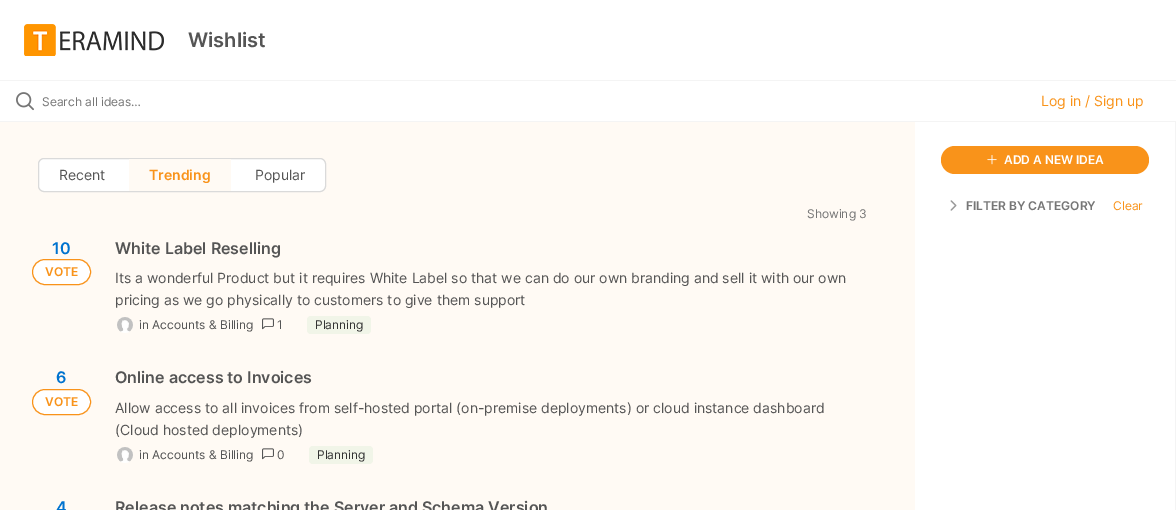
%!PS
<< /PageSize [1176 510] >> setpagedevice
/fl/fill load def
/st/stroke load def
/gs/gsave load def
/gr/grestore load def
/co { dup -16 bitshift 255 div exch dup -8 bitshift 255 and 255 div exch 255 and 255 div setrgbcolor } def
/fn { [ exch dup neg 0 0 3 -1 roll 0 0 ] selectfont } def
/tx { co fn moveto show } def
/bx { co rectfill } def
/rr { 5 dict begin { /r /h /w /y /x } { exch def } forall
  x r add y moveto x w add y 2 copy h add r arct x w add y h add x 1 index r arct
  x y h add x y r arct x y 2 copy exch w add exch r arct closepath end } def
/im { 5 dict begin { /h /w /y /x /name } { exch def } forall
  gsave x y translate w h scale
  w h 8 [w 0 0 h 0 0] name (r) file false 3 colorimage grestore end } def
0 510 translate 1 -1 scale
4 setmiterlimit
0 0 1176 510 16#FFFAF4 bx
0 0 1176 80 16#FFFFFF bx
0 80 1176 1 16#F4F4F4 bx
(media/1.raw) 24 24 140 32 im
0 81 1176 40 16#FFFFFF bx
0 121 1176 1 16#F4F4F4 bx
(media/2.raw) 16 92 18 19 im
16#FFFFFF co
38.5 158.5 287 33 5.5 rr gs fl gr
16#DADADA co
st
129 159 102 32 16#FFFAF4 bx
16#FFFFFF co
32.5 259.5 58 25 12.5 rr gs fl gr
16#F9931A co
st
(media/3.raw) 117 317 16 16 im
(media/4.raw) 262 318 12 12 im
16#F1F5E8 co
307 316 64 18 4 rr fl
16#FFFFFF co
32.5 389.5 58 25 12.5 rr gs fl gr
16#F9931A co
st
(media/3.raw) 117 447 16 16 im
(media/4.raw) 262 448 12 12 im
16#F1F5E8 co
309 446 64 18 4 rr fl
915 122 260 388 16#FFFFFF bx
1175 122 1 388 16#F4F4F4 bx
16#F9931A co
941 146 208 28 14 rr fl
(media/5.raw) 987 155 10 10 im
(media/6.raw) 950 200 7 11 im
(Wishlist) 188 47 /Inter-SemiBold 20 16#555555 tx
(Search all ideas…) 42 106 /Inter-Regular 12 16#767676 tx
(Log in / Sign up) 1041 106 /Inter-Regular 14 16#F9931A tx
(Recent) 59 180 /Inter-Regular 14 16#555555 tx
(Trending) 149 180 /Inter-SemiBold 14 16#F9931A tx
(Popular) 255 180 /Inter-Regular 14 16#555555 tx
(Showing 3) 807 218 /Inter-Regular 12 16#767676 tx
(10) 52 254 /Inter-SemiBold 16 16#0073CF tx
(VOTE) 45 276 /Inter-SemiBold 12 16#F9931A tx
(White Label Reselling) 115 254 /Inter-SemiBold 16 16#555555 tx
(Its a wonderful Product but it requires White Label so that we can do our own branding and sell it with our own) 115 283 /Inter-Regular 14 16#555555 tx
(pricing as we go physically to customers to give them support) 115 305 /Inter-Regular 14 16#555555 tx
(in Accounts & Billing) 139 329 /Inter-Regular 12 16#555555 tx
(1) 277 329 /Inter-Regular 12 16#555555 tx
(Planning) 315 329 /Inter-Regular 12 16#333333 tx
(6) 56 383 /Inter-SemiBold 16 16#0073CF tx
(VOTE) 45 406 /Inter-SemiBold 12 16#F9931A tx
(Online access to Invoices) 115 383 /Inter-SemiBold 16 16#555555 tx
(Allow access to all invoices from self-hosted portal \(on-premise deployments\) or cloud instance dashboard) 115 413 /Inter-Regular 14 16#555555 tx
(\(Cloud hosted deployments\)) 115 435 /Inter-Regular 14 16#555555 tx
(in Accounts & Billing) 139 459 /Inter-Regular 12 16#555555 tx
(0) 277 459 /Inter-Regular 12 16#555555 tx
(Planning) 317 459 /Inter-Regular 12 16#333333 tx
(4) 56 513 /Inter-SemiBold 16 16#0073CF tx
(Release notes matching the Server and Schema Version) 115 513 /Inter-SemiBold 16 16#555555 tx
(ADD A NEW IDEA) 1004 164 /Inter-SemiBold 12 16#FFFFFF tx
(FILTER BY CATEGORY) 966 210 /Inter-SemiBold 12 16#767676 tx
(Clear) 1113 210 /Inter-Regular 12 16#F9931A tx
showpage
